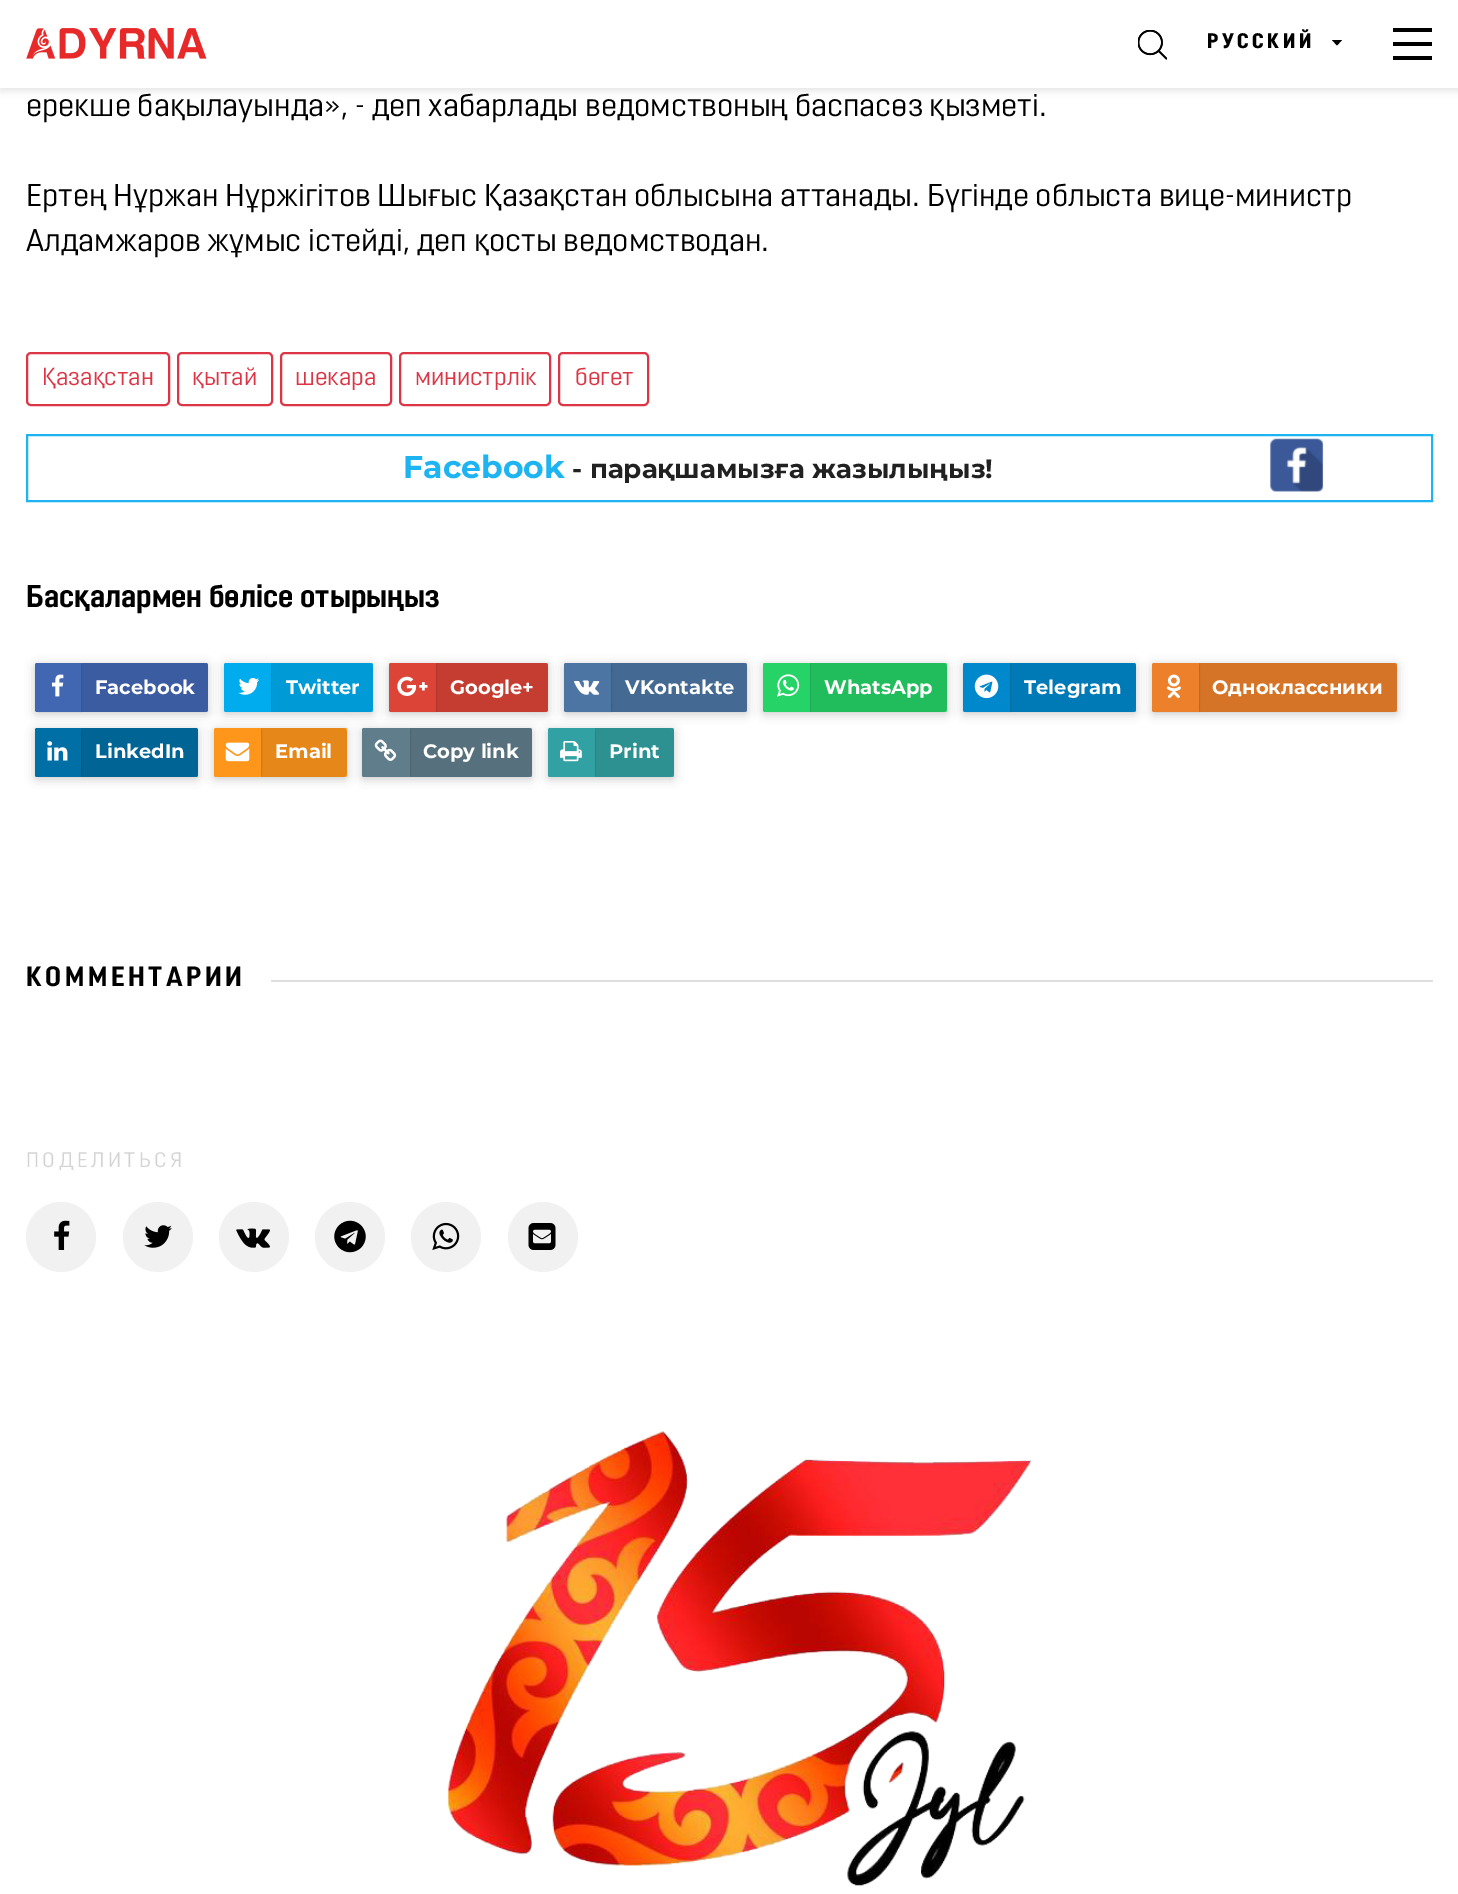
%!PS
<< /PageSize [1458 1894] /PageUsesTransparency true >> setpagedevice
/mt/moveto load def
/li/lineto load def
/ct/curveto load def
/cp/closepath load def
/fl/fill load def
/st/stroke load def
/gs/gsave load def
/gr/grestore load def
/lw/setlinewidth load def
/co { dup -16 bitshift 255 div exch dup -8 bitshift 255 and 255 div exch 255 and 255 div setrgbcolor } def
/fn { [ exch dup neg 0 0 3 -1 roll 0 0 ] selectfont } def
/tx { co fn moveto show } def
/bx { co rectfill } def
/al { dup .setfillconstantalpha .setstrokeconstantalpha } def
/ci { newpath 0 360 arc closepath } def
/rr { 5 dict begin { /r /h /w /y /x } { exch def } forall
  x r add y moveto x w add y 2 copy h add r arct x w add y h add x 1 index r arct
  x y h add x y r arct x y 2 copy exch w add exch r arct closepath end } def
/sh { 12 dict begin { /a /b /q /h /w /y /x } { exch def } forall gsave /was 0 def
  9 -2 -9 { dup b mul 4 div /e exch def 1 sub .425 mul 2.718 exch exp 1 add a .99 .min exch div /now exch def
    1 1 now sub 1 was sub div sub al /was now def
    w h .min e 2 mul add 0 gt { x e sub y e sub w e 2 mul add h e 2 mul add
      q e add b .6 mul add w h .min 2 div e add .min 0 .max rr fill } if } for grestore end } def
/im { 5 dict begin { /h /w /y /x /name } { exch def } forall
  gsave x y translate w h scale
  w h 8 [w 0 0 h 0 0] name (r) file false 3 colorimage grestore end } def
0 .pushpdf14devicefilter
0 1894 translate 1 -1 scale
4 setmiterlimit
0 0 1458 1894 16#FFFFFF bx
16#000000 co
0 4 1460 87 0 3.5 .1 sh
0 0 1458 88 16#FFFFFF bx
(media/1.raw) 26 28 181 31 im
(media/2.raw) 1138 30 29 30 im
16#000000 co
1332 40 mt 1342 40 li 1337 45.5 li cp fl
1393 42 39 4 16#000000 bx
1393 28 39 4 16#000000 bx
1393 56 39 4 16#000000 bx
16#DC3545 co
2 lw
27 353 142 52 4 rr st
178 353 94 52 4 rr st
281 353 110 52 4 rr st
400 353 150 52 4 rr st
559 353 89 52 4 rr st
16#1EB4F1 co
27 435 1405 66 rectstroke
(media/3.raw) 1270 438 54 54 im
16#A5A5A5 co
35 665 173 49 2 5 .6 sh
16#4267B2 co
35 663 173 49 2 rr fl
gs
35 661 mt 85 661 li 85 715 li 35 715 li cp 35 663 mt 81 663 li 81 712 li 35 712 li cp eoclip newpath
16#000000 co
39 665 42 46 0 1 .3 sh
gr
(media/4.raw) 52 674 12 23 im
0.1 al
16#000000 co
81 663 mt 203 663 li 206 663 208 665 208 668 ct 208 707 li 208 710 206 712 203 712 ct 81 712 li cp fl
1 al
16#A5A5A5 co
224 665 149 49 2 5 .6 sh
16#00ACEE co
224 663 149 49 2 rr fl
gs
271 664 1 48 rectclip
16#000000 co
228 665 43 46 0 1 .3 sh
gr
(media/5.raw) 238 678 22 17 im
0.1 al
16#000000 co
271 663 mt 368 663 li 371 663 373 665 373 668 ct 373 707 li 373 710 371 712 368 712 ct 271 712 li cp fl
1 al
16#A5A5A5 co
389 665 159 49 2 5 .6 sh
16#DB4437 co
389 663 159 49 2 rr fl
gs
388 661 mt 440 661 li 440 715 li 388 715 li cp 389 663 mt 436 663 li 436 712 li 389 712 li cp eoclip newpath
16#000000 co
392 665 44 46 0 1 .3 sh
gr
(media/6.raw) 397 676 31 20 im
0.1 al
16#000000 co
436 663 mt 543 663 li 546 663 548 665 548 668 ct 548 707 li 548 710 546 712 543 712 ct 436 712 li cp fl
1 al
16#A5A5A5 co
564 665 183 49 2 5 .6 sh
16#4C75A3 co
564 663 183 49 2 rr fl
gs
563 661 mt 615 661 li 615 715 li 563 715 li cp 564 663 mt 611 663 li 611 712 li 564 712 li cp eoclip newpath
16#000000 co
567 665 44 46 0 1 .3 sh
gr
(media/7.raw) 574 680 26 15 im
0.1 al
16#000000 co
611 663 mt 742 663 li 745 663 747 665 747 668 ct 747 707 li 747 710 745 712 742 712 ct 611 712 li cp fl
1 al
16#A5A5A5 co
763 665 184 49 2 5 .6 sh
16#25D366 co
763 663 184 49 2 rr fl
gs
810 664 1 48 rectclip
16#000000 co
767 665 43 46 0 1 .3 sh
gr
(media/8.raw) 777 674 23 23 im
0.1 al
16#000000 co
810 663 mt 942 663 li 945 663 947 665 947 668 ct 947 707 li 947 710 945 712 942 712 ct 810 712 li cp fl
1 al
16#A5A5A5 co
963 665 173 49 2 5 .6 sh
16#0088CC co
963 663 173 49 2 rr fl
gs
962 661 mt 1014 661 li 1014 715 li 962 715 li cp 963 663 mt 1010 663 li 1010 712 li 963 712 li cp eoclip newpath
16#000000 co
966 665 44 46 0 1 .3 sh
gr
(media/9.raw) 974 674 25 25 im
0.1 al
16#000000 co
1010 663 mt 1131 663 li 1134 663 1136 665 1136 668 ct 1136 707 li 1136 710 1134 712 1131 712 ct 1010 712 li cp fl
1 al
16#A5A5A5 co
1152 665 245 49 2 5 .6 sh
16#ED812B co
1152 663 245 49 2 rr fl
gs
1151 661 mt 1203 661 li 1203 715 li 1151 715 li cp 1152 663 mt 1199 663 li 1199 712 li 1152 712 li cp eoclip newpath
16#000000 co
1155 665 44 46 0 1 .3 sh
gr
(media/10.raw) 1166 674 15 25 im
0.1 al
16#000000 co
1199 663 mt 1392 663 li 1395 663 1397 665 1397 668 ct 1397 707 li 1397 710 1395 712 1392 712 ct 1199 712 li cp fl
1 al
16#A5A5A5 co
35 730 163 49 2 5 .6 sh
16#006FA6 co
35 728 163 49 2 rr fl
gs
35 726 mt 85 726 li 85 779 li 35 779 li cp 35 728 mt 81 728 li 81 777 li 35 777 li cp eoclip newpath
16#000000 co
39 730 42 45 0 1 .3 sh
gr
(media/11.raw) 47 741 21 20 im
0.1 al
16#000000 co
81 728 mt 193 728 li 196 728 198 730 198 733 ct 198 772 li 198 775 196 777 193 777 ct 81 777 li cp fl
1 al
16#A5A5A5 co
214 730 133 49 2 5 .6 sh
16#FF961C co
214 728 133 49 2 rr fl
gs
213 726 mt 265 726 li 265 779 li 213 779 li cp 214 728 mt 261 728 li 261 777 li 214 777 li cp eoclip newpath
16#000000 co
217 730 44 45 0 1 .3 sh
gr
(media/12.raw) 225 742 25 20 im
0.1 al
16#000000 co
261 728 mt 342 728 li 345 728 347 730 347 733 ct 347 772 li 347 775 345 777 342 777 ct 261 777 li cp fl
1 al
16#A5A5A5 co
362 730 170 49 2 5 .6 sh
16#607D8B co
362 728 170 49 2 rr fl
gs
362 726 mt 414 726 li 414 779 li 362 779 li cp 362 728 mt 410 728 li 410 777 li 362 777 li cp eoclip newpath
16#000000 co
366 730 44 45 0 1 .3 sh
gr
(media/13.raw) 374 739 23 22 im
0.1 al
16#000000 co
410 728 mt 527 728 li 530 728 532 730 532 733 ct 532 772 li 532 775 530 777 527 777 ct 410 777 li cp fl
1 al
16#A5A5A5 co
548 730 126 49 2 5 .6 sh
16#32A1A3 co
548 728 126 49 2 rr fl
gs
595 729 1 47 rectclip
16#000000 co
551 730 44 45 0 1 .3 sh
gr
(media/14.raw) 560 741 22 21 im
0.1 al
16#000000 co
595 728 mt 669 728 li 672 728 674 730 674 733 ct 674 772 li 674 775 672 777 669 777 ct 595 777 li cp fl
1 al
271 980 1162 2 16#DEDEDE bx
16#F1F1F1 co
61 1237 35 ci fl
(media/15.raw) 54 1220 16 30 im
158 1237 35 ci fl
(media/16.raw) 144 1225 28 23 im
254 1237 35 ci fl
(media/17.raw) 236 1228 34 20 im
350 1237 35 ci fl
(media/18.raw) 334 1220 32 33 im
446 1237 35 ci fl
(media/19.raw) 432 1222 28 28 im
543 1237 35 ci fl
(media/20.raw) 528 1223 28 27 im
(media/21.raw) 447 1431 585 455 im
/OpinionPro-ExtraBold 21 fn
16#000000 co
1207 48 mt 3.5 0 (РУССКИЙ) ashow
(ерекше бақылауында», - деп хабарлады ведомствоның баспасөз қызметі.) 26 116 /OpinionPro-Regular 31.5 16#000000 tx
(Ертең Нұржан Нұржігітов Шығыс Қазақстан облысына аттанады. Бүгінде облыста вице-министр) 26 206 /OpinionPro-Regular 31.5 16#000000 tx
(Алдамжаров жұмыс істейді, деп қосты ведомстводан.) 26 251 /OpinionPro-Regular 31.5 16#000000 tx
(Қазақстан) 42 385 /OpinionPro-Regular 24.5 16#DC3545 tx
(қытай) 192 385 /OpinionPro-Regular 24.5 16#DC3545 tx
(шекара) 295 385 /OpinionPro-Regular 24.5 16#DC3545 tx
(министрлік) 415 385 /OpinionPro-Regular 24.5 16#DC3545 tx
(бөгет) 575 385 /OpinionPro-Regular 24.5 16#DC3545 tx
(Facebook) 403 478 /Montserrat-Bold 31.5 16#1EB4F1 tx
(- парақшамызға жазылыңыз!) 572 478 /Montserrat-Bold 26.25 16#212121 tx
(Басқалармен бөлісе отырыңыз) 26 607 /OpinionPro-Bold 31.5 16#000000 tx
(Facebook) 95 694 /Montserrat-Bold 19.5 16#FFFFFF tx
(Twitter) 286 694 /Montserrat-Bold 19.5 16#FFFFFF tx
(Google+) 450 694 /Montserrat-Bold 19.5 16#FFFFFF tx
(VKontakte) 625 694 /Montserrat-Bold 19.5 16#FFFFFF tx
(WhatsApp) 824 694 /Montserrat-Bold 19.5 16#FFFFFF tx
(Telegram) 1024 694 /Montserrat-Bold 19.5 16#FFFFFF tx
(Одноклассники) 1212 694 /Montserrat-Bold 19.5 16#FFFFFF tx
(LinkedIn) 95 758 /Montserrat-Bold 19.5 16#FFFFFF tx
(Email) 275 758 /Montserrat-Bold 19.5 16#FFFFFF tx
(Copy link) 423 758 /Montserrat-Bold 19.5 16#FFFFFF tx
(Print) 609 758 /Montserrat-Bold 19.5 16#FFFFFF tx
/OpinionPro-Bold 28 fn
16#000000 co
26 986 mt 3.5 0 (КОММЕНТАРИИ) ashow
/OpinionPro-Regular 21 fn
16#D4D4D4 co
26 1167 mt 3.5 0 (ПОДЕЛИТЬСЯ) ashow
.poppdf14devicefilter showpage
